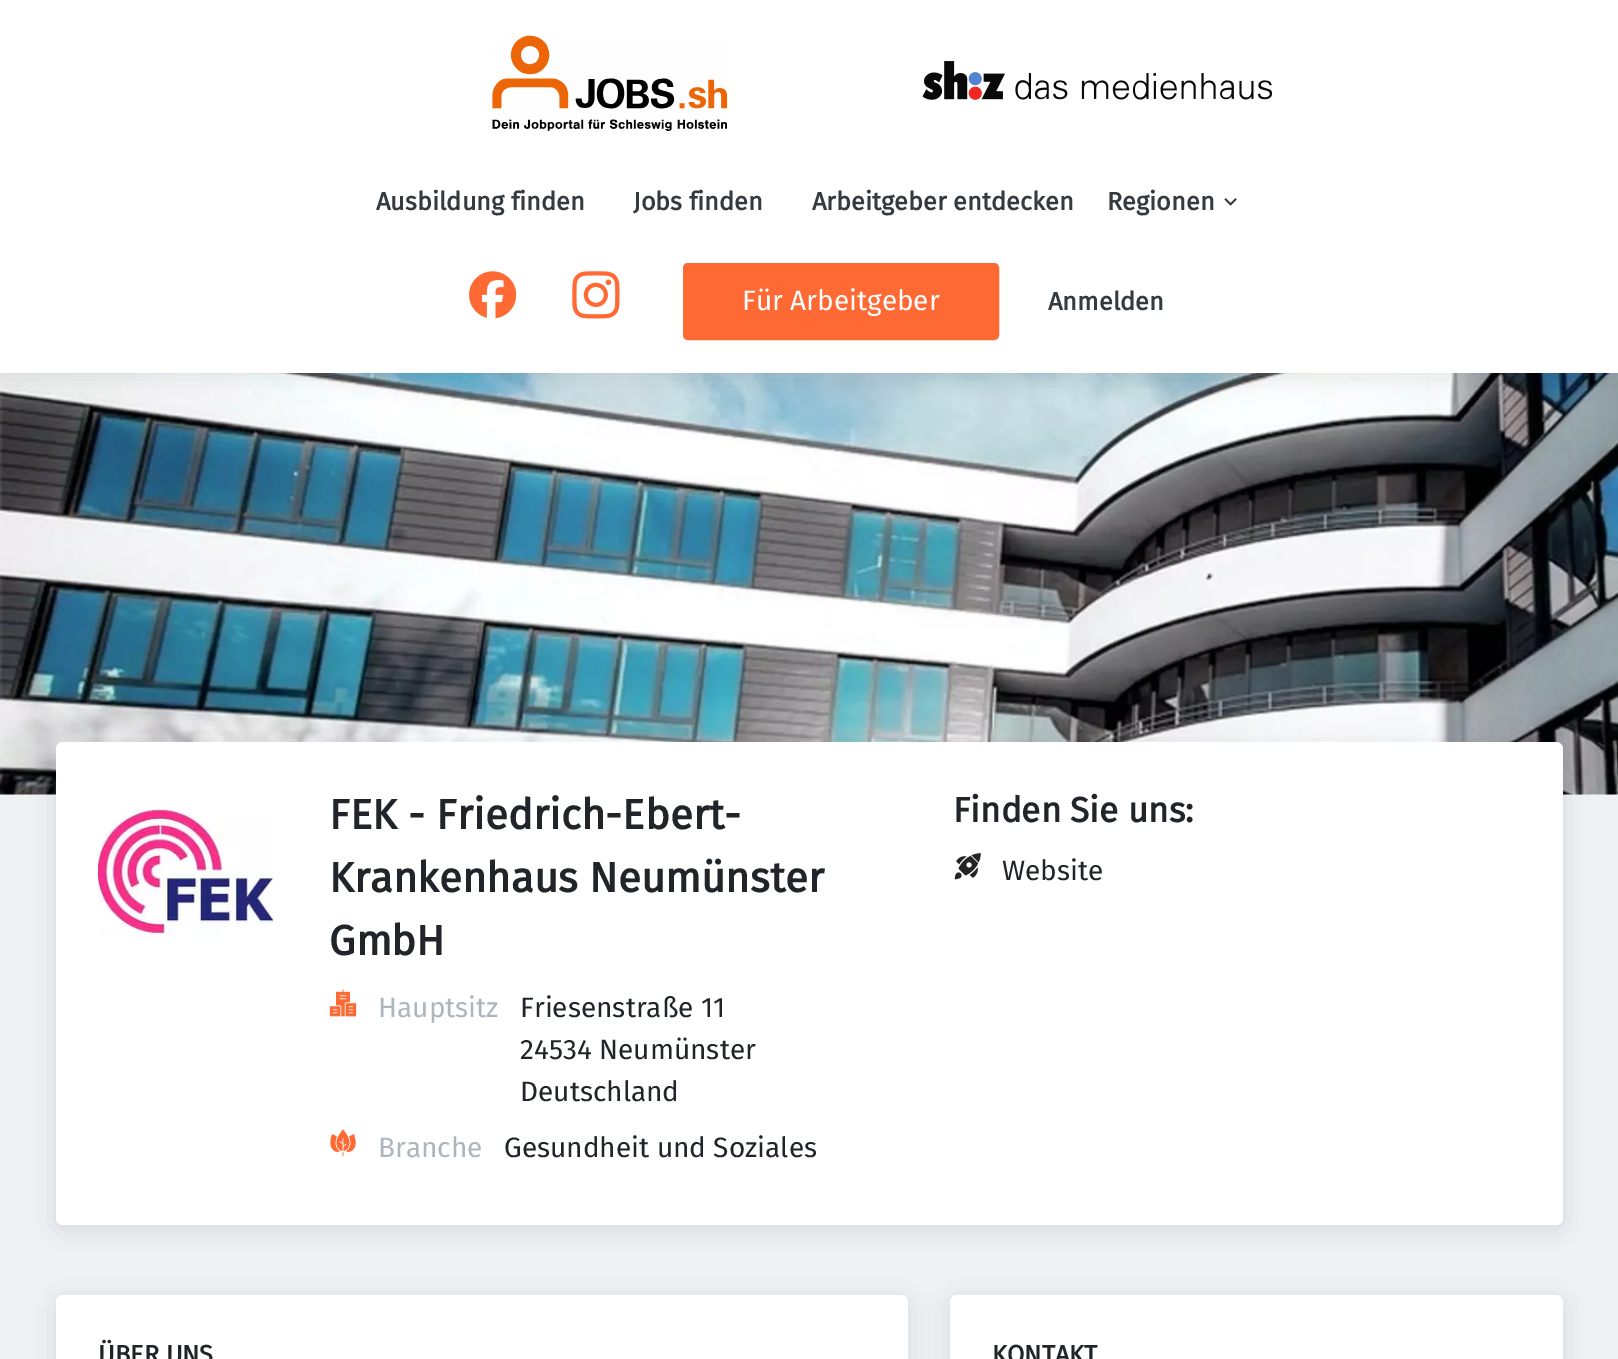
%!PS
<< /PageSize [1618 1359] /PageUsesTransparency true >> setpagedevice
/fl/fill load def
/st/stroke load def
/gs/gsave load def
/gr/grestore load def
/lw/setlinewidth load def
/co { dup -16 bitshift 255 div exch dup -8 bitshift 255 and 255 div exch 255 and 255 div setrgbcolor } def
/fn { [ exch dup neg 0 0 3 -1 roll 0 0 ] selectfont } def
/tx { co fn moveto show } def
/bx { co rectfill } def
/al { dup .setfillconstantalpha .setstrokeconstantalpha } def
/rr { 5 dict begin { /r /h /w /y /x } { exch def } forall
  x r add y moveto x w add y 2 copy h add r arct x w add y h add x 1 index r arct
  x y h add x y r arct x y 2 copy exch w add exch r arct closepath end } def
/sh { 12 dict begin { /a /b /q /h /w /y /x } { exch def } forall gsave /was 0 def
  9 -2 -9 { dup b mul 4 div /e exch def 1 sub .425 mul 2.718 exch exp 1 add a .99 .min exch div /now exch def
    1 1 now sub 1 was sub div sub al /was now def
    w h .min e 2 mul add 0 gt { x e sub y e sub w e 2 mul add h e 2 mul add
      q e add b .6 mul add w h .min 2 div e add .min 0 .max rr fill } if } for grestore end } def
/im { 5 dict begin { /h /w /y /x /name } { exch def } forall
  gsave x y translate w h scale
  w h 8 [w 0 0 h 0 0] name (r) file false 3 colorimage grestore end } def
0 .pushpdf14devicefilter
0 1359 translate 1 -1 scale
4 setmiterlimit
0 0 1618 1359 16#EFF2F4 bx
(media/6.raw) 0 373 1618 422 im
16#000000 co
0 5 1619 373 0 13 .1 sh
0 0 1618 373 16#FFFFFF bx
(media/1.raw) 492 35 236 96 im
(media/2.raw) 922 61 350 39 im
(media/3.raw) 1224 198 13 8 im
(media/4.raw) 469 271 47 48 im
(media/5.raw) 572 271 48 48 im
16#FF6934 co
685 265 312 73 3 rr gs fl gr
4 lw
st
16#000000 co
56 747 1507 483 7 13 .1 sh
16#FFFFFF co
56 742 1507 483 7 rr fl
(media/7.raw) 98 807 175 133 im
(media/8.raw) 329 989 28 28 im
(media/9.raw) 330 1129 26 28 im
(media/10.raw) 954 853 27 27 im
16#000000 co
56 1300 852 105 7 13 .1 sh
16#FFFFFF co
56 1295 852 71 7 rr fl
16#000000 co
950 1300 613 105 7 13 .1 sh
16#FFFFFF co
950 1295 613 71 7 rr fl
(Ausbildung finden) 376 210 /FiraSans-Bold 25.25 16#343A40 tx
(Jobs finden) 633 210 /FiraSans-Bold 25.25 16#343A40 tx
(Arbeitgeber entdecken) 812 210 /FiraSans-Bold 25.25 16#343A40 tx
(Regionen) 1107 210 /FiraSans-Bold 25.25 16#343A40 tx
(Für Arbeitgeber) 742 310 /FiraSans-Regular 28 16#FFFFFF tx
(Anmelden) 1048 310 /FiraSans-Bold 25.25 16#343A40 tx
(FEK - Friedrich-Ebert-) 329 829 /FiraSans-Bold 42 16#212529 tx
(Krankenhaus Neumünster) 329 892 /FiraSans-Bold 42 16#212529 tx
(GmbH) 329 955 /FiraSans-Bold 42 16#212529 tx
(Hauptsitz) 378 1017 /FiraSans-Regular 28 16#ADB5BD tx
(Friesenstraße 11) 520 1017 /FiraSans-Regular 28 16#212529 tx
(24534 Neumünster) 520 1059 /FiraSans-Regular 28 16#212529 tx
(Deutschland) 520 1101 /FiraSans-Regular 28 16#212529 tx
(Branche) 378 1157 /FiraSans-Regular 28 16#ADB5BD tx
(Gesundheit und Soziales) 504 1157 /FiraSans-Regular 28 16#212529 tx
(Finden Sie uns:) 953 822 /FiraSans-Bold 35 16#212529 tx
(Website) 1002 880 /FiraSans-Regular 28 16#212529 tx
(ÜBER UNS) 98 1363 /FiraSans-Bold 25.25 16#212529 tx
(KONTAKT) 992 1363 /FiraSans-Bold 25.25 16#212529 tx
.poppdf14devicefilter showpage
